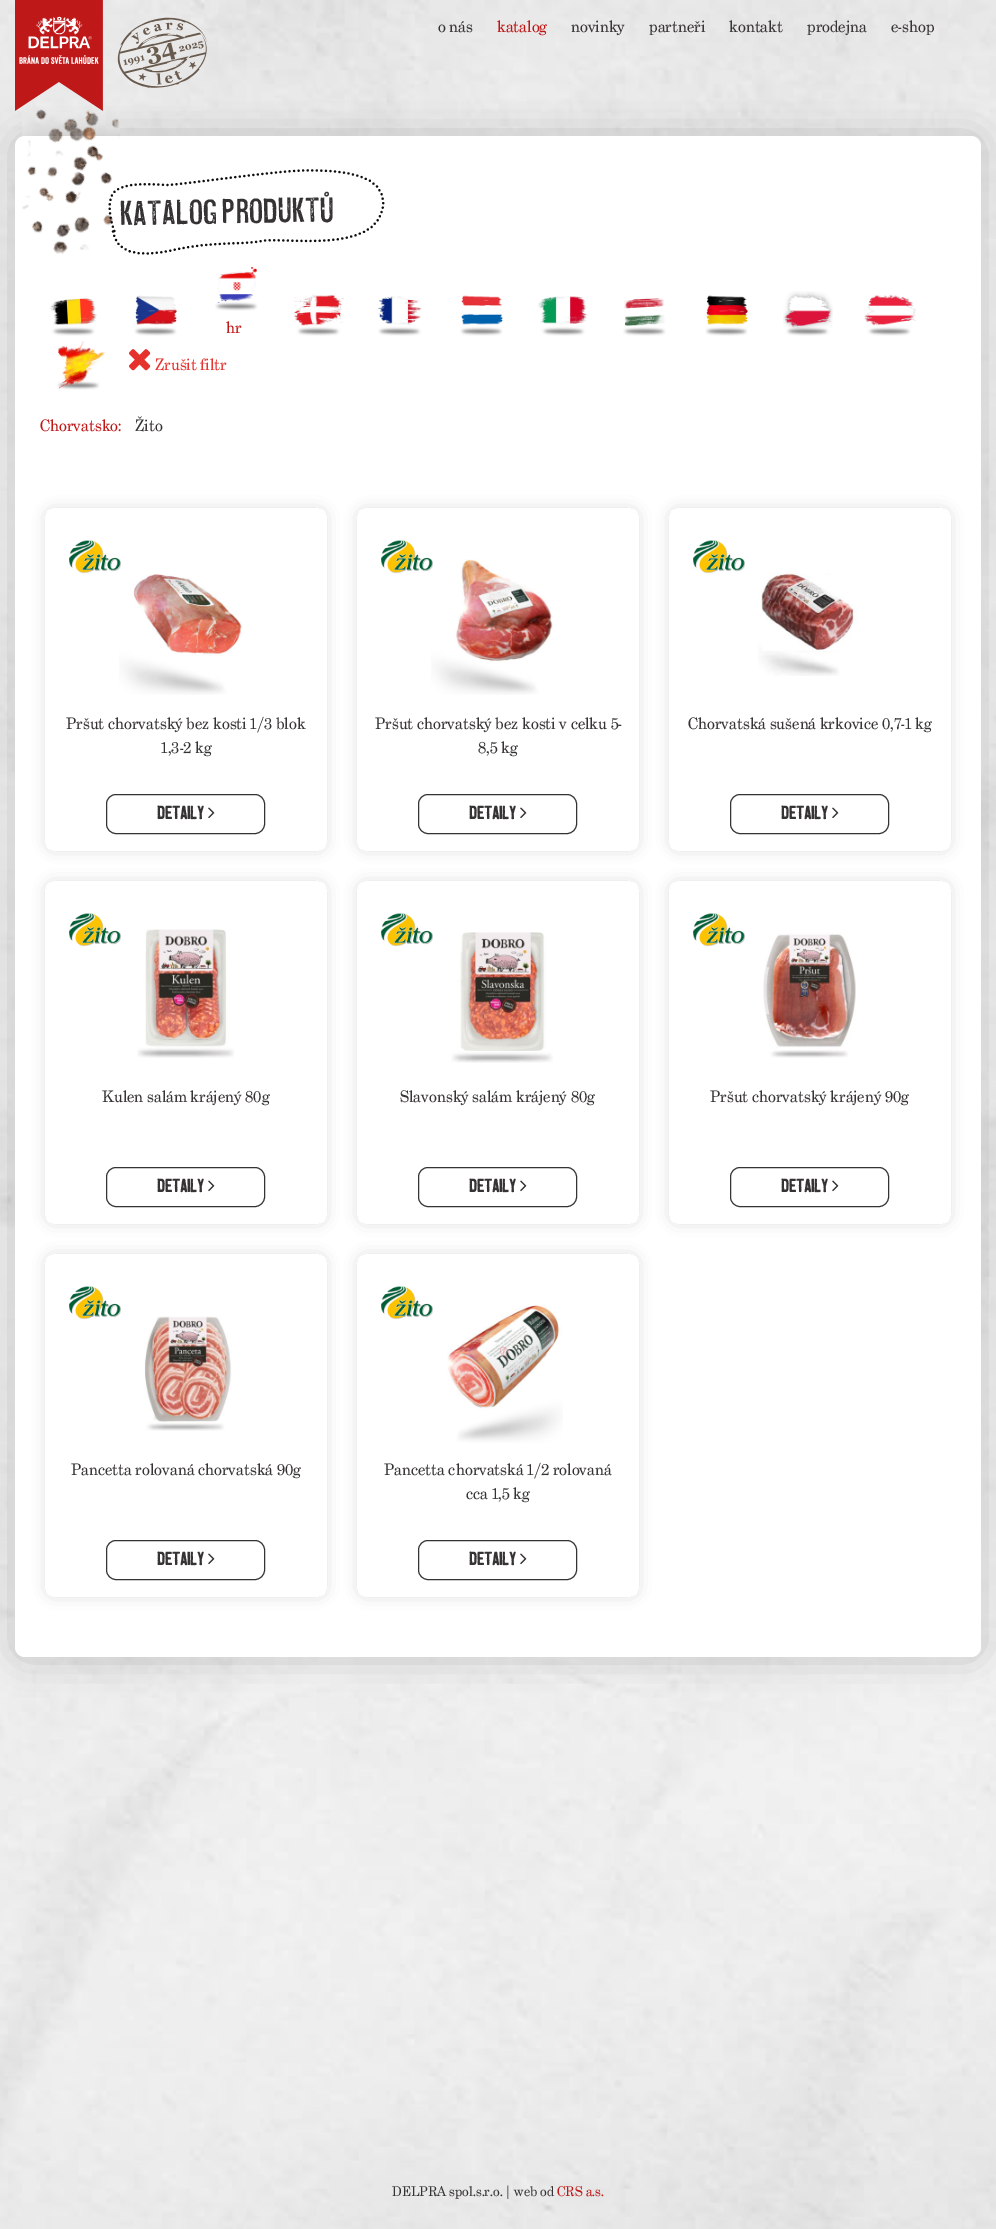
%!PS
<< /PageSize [996 2229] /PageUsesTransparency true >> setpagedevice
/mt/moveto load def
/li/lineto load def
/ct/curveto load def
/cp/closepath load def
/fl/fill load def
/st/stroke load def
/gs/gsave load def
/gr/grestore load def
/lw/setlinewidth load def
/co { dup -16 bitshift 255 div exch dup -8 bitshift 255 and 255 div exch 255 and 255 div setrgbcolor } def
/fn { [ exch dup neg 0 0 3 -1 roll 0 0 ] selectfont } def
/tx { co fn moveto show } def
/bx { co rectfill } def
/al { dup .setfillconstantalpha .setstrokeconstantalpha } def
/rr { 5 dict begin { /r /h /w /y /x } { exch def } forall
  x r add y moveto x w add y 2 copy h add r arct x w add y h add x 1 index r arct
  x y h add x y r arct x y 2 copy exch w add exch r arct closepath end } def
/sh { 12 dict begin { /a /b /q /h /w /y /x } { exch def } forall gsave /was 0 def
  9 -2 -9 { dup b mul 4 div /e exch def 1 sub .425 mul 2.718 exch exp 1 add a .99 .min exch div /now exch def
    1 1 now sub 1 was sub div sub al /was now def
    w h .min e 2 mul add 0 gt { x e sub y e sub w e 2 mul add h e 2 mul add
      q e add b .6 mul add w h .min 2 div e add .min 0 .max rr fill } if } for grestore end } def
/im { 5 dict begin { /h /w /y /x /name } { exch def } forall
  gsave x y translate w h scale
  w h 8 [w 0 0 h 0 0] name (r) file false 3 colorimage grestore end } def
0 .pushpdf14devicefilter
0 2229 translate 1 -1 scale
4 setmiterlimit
0 0 996 2229 16#FFFFFF bx
(media/1.raw) 0 0 996 2229 im
16#000000 co
21 142 954 1509 4 18.5 .27 sh
16#FFFFFF co
15 136 966 1521 10 rr fl
(media/3.raw) 22 109 98 145 im
(media/2.raw) 15 0 192 111 im
16#0D0D0D co
2.3 lw
1 setlinecap
[0 4.55] 0 setdash
113 231.5 mt 116.5 251.5 135 258.5 173.5 250 ct 213 241 243 245 261.5 241 ct 282 236.5 378 255.5 383 205.5 ct 386 175 344.5 169.5 302.5 170.5 ct 270 171.5 179.5 185 166.5 185 ct 154 184.5 122 181 113 193.5 ct 104.5 206.5 114.5 231.5 114.5 231.5 ct st
(media/4.raw) 49 298 48 38 im
(media/5.raw) 134 295 43 41 im
(media/6.raw) 215 267 43 44 im
(media/7.raw) 294 294 50 42 im
(media/8.raw) 378 296 44 40 im
(media/9.raw) 460 295 43 41 im
(media/10.raw) 537 296 51 40 im
(media/11.raw) 623 298 43 38 im
(media/12.raw) 705 295 43 41 im
(media/13.raw) 783 291 50 45 im
(media/14.raw) 864 294 52 42 im
(media/15.raw) 57 341 49 49 im
(media/16.raw) 129 349 22 22 im
gs
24 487 mt 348 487 li 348 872 li 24 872 li cp 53 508 mt 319 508 li 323.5 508 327 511.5 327 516 ct 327 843 li 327 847.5 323.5 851 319 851 ct 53 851 li 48.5 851 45 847.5 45 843 ct 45 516 li 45 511.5 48.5 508 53 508 ct cp eoclip newpath
16#000000 co
51 514 270 331 2 8.5 .27 sh
gr
(media/17.raw) 69 540 52 34 im
(media/18.raw) 119 574 123 121 im
16#363334 co
1 lw
0 setlinecap
[] 0 setdash
106.5 794.5 158 39 9.5 rr st
(media/19.raw) 208 807 7 12 im
gs
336 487 mt 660 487 li 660 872 li 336 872 li cp 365 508 mt 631 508 li 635.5 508 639 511.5 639 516 ct 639 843 li 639 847.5 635.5 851 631 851 ct 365 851 li 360.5 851 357 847.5 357 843 ct 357 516 li 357 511.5 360.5 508 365 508 ct cp eoclip newpath
16#000000 co
363 514 270 331 2 8.5 .27 sh
gr
(media/20.raw) 431 559 122 136 im
(media/17.raw) 381 540 52 34 im
418.5 794.5 158 39 9.5 rr st
(media/19.raw) 520 807 7 12 im
gs
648 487 mt 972 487 li 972 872 li 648 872 li cp 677 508 mt 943 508 li 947.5 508 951 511.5 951 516 ct 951 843 li 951 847.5 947.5 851 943 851 ct 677 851 li 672.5 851 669 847.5 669 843 ct 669 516 li 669 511.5 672.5 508 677 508 ct cp eoclip newpath
16#000000 co
675 514 270 331 2 8.5 .27 sh
gr
(media/21.raw) 693 540 52 34 im
(media/22.raw) 758 571 100 105 im
730.5 794.5 158 39 9.5 rr st
(media/19.raw) 832 807 7 12 im
gs
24 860 mt 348 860 li 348 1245 li 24 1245 li cp 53 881 mt 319 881 li 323.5 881 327 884.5 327 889 ct 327 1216 li 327 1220.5 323.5 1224 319 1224 ct 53 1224 li 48.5 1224 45 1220.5 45 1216 ct 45 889 li 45 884.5 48.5 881 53 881 ct cp eoclip newpath
16#000000 co
51 887 270 331 2 8.5 .27 sh
gr
(media/17.raw) 69 913 52 34 im
(media/23.raw) 137 929 97 129 im
106.5 1167.5 158 39 9.5 rr st
(media/19.raw) 208 1180 7 12 im
gs
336 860 mt 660 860 li 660 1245 li 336 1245 li cp 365 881 mt 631 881 li 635.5 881 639 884.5 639 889 ct 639 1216 li 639 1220.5 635.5 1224 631 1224 ct 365 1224 li 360.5 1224 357 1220.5 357 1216 ct 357 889 li 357 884.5 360.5 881 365 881 ct cp eoclip newpath
16#000000 co
363 887 270 331 2 8.5 .27 sh
gr
(media/17.raw) 381 913 52 34 im
(media/24.raw) 451 932 102 131 im
418.5 1167.5 158 39 9.5 rr st
(media/19.raw) 520 1180 7 12 im
gs
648 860 mt 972 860 li 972 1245 li 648 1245 li cp 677 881 mt 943 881 li 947.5 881 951 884.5 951 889 ct 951 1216 li 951 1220.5 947.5 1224 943 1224 ct 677 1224 li 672.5 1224 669 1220.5 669 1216 ct 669 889 li 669 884.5 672.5 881 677 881 ct cp eoclip newpath
16#000000 co
675 887 270 331 2 8.5 .27 sh
gr
(media/21.raw) 693 913 52 34 im
(media/25.raw) 763 933 93 125 im
730.5 1167.5 158 39 9.5 rr st
(media/19.raw) 832 1180 7 12 im
gs
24 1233 mt 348 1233 li 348 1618 li 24 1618 li cp 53 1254 mt 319 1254 li 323.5 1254 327 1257.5 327 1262 ct 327 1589 li 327 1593.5 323.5 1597 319 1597 ct 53 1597 li 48.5 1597 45 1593.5 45 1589 ct 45 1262 li 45 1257.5 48.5 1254 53 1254 ct cp eoclip newpath
16#000000 co
51 1260 270 331 2 8.5 .27 sh
gr
(media/26.raw) 69 1286 52 34 im
(media/27.raw) 144 1316 88 115 im
106.5 1540.5 158 39 9.5 rr st
(media/19.raw) 208 1553 7 12 im
gs
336 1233 mt 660 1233 li 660 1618 li 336 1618 li cp 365 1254 mt 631 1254 li 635.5 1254 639 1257.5 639 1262 ct 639 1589 li 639 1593.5 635.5 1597 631 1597 ct 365 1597 li 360.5 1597 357 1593.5 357 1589 ct 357 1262 li 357 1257.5 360.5 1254 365 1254 ct cp eoclip newpath
16#000000 co
363 1260 270 331 2 8.5 .27 sh
gr
(media/26.raw) 381 1286 52 34 im
(media/28.raw) 447 1305 116 138 im
418.5 1540.5 158 39 9.5 rr st
(media/19.raw) 520 1553 7 12 im
(o nás) 438 32 /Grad-Regular 16 16#363334 tx
(katalog) 497 32 /Grad-Regular 16 16#BE1717 tx
(novinky) 571 32 /Grad-Regular 16 16#363334 tx
(partneři) 649 32 /Grad-Regular 16 16#363334 tx
(kontakt) 729 32 /Grad-Regular 16 16#363334 tx
(prodejna) 807 32 /Grad-Regular 16 16#363334 tx
(e-shop) 891 32 /Grad-Regular 16 16#363334 tx
/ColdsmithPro-Regular 36 fn
gs 120 225 translate -1 rotate 0 0 mt (KATALOG PRODUKTŮ) show gr
(hr) 226 333 /Grad-Regular 16 16#BE1717 tx
(Zrušit filtr) 155 370 /Grad-Regular 16 16#E5322D tx
(Chorvatsko:) 40 431 /Grad-Regular 16 16#BE1717 tx
(Žito) 135 431 /Grad-Regular 16 16#363334 tx
(Pršut chorvatský bez kosti 1/3 blok) 66 729 /Grad-Regular 16 16#363334 tx
(1,3-2 kg) 161 753 /Grad-Regular 16 16#363334 tx
(DETAILY) 157 819 /ColdsmithPro-Bold 19 16#363334 tx
(Pršut chorvatský bez kosti v celku 5-) 375 729 /Grad-Regular 16 16#363334 tx
(8,5 kg) 478 753 /Grad-Regular 16 16#363334 tx
(DETAILY) 469 819 /ColdsmithPro-Bold 19 16#363334 tx
(Chorvatská sušená krkovice 0,7-1 kg) 688 729 /Grad-Regular 16 16#363334 tx
(DETAILY) 781 819 /ColdsmithPro-Bold 19 16#363334 tx
(Kulen salám krájený 80g) 102 1102 /Grad-Regular 16 16#363334 tx
(DETAILY) 157 1192 /ColdsmithPro-Bold 19 16#363334 tx
(Slavonský salám krájený 80g) 400 1102 /Grad-Regular 16 16#363334 tx
(DETAILY) 469 1192 /ColdsmithPro-Bold 19 16#363334 tx
(Pršut chorvatský krájený 90g) 710 1102 /Grad-Regular 16 16#363334 tx
(DETAILY) 781 1192 /ColdsmithPro-Bold 19 16#363334 tx
(Pancetta rolovaná chorvatská 90g) 71 1475 /Grad-Regular 16 16#363334 tx
(DETAILY) 157 1565 /ColdsmithPro-Bold 19 16#363334 tx
(Pancetta chorvatská 1/2 rolovaná) 384 1475 /Grad-Regular 16 16#363334 tx
(cca 1,5 kg) 466 1499 /Grad-Regular 16 16#363334 tx
(DETAILY) 469 1565 /ColdsmithPro-Bold 19 16#363334 tx
(DELPRA spol.s.r.o. | web od) 392 2196 /Grad-Regular 13.6 16#363334 tx
(CRS a.s.) 557 2196 /Grad-Regular 13.6 16#BE1717 tx
.poppdf14devicefilter showpage
